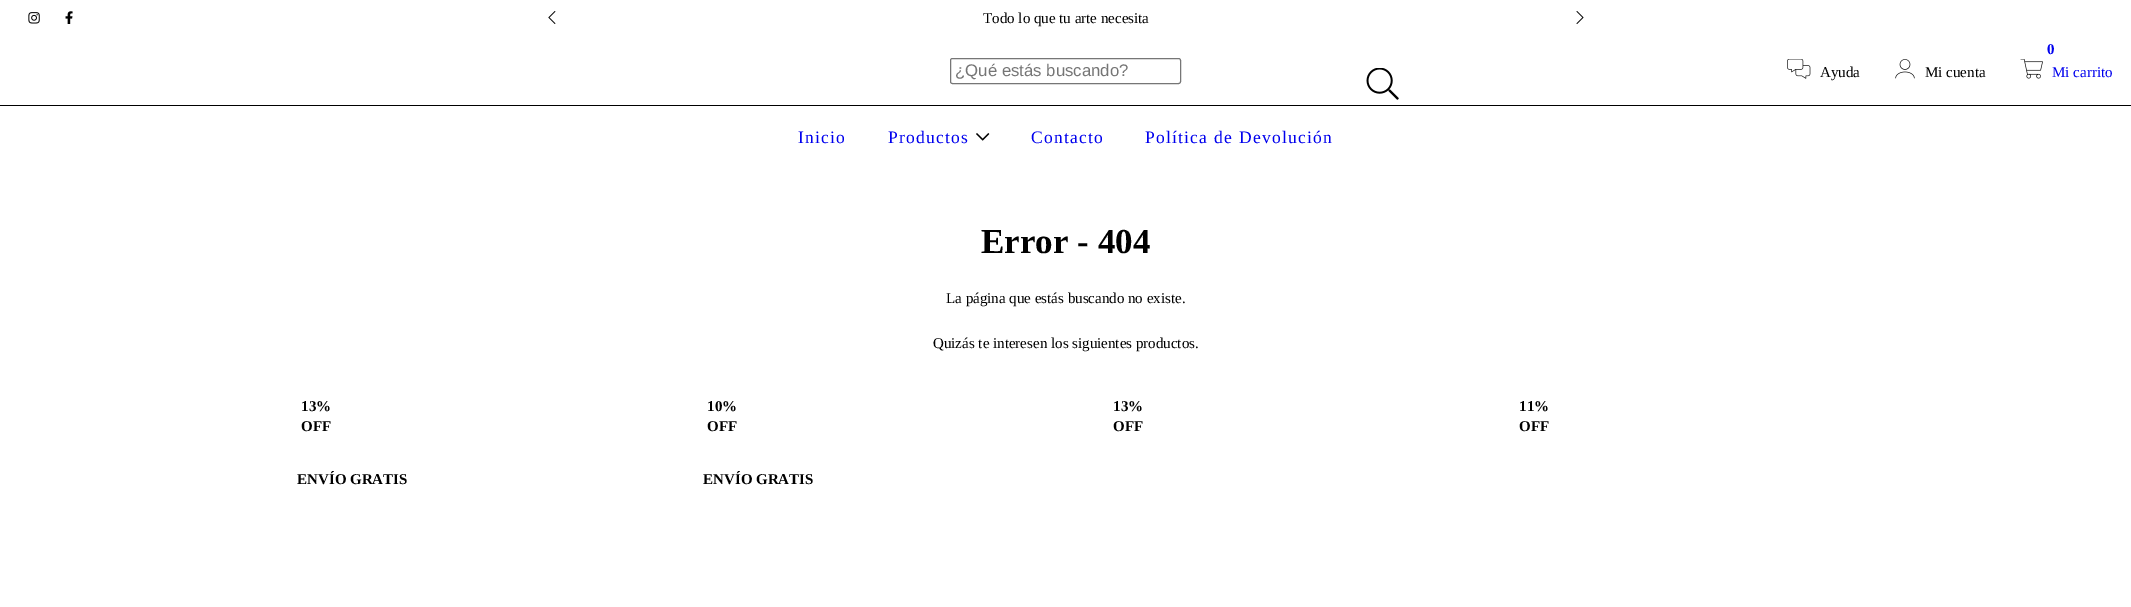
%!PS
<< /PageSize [2131 607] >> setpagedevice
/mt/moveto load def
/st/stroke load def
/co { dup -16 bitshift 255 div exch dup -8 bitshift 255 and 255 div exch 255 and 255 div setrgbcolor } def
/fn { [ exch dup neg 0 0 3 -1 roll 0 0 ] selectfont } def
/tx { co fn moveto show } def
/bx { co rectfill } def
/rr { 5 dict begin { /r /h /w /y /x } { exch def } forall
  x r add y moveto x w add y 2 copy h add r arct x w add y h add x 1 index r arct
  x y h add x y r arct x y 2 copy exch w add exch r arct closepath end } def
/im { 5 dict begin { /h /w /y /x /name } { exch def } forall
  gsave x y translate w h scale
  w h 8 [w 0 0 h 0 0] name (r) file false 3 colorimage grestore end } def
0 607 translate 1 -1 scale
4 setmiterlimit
0 0 2131 607 16#FFFFFF bx
(media/1.raw) 28 12 12 12 im
(media/2.raw) 65 11 8 13 im
(media/3.raw) 548 11 8 13 im
(media/4.raw) 1576 11 8 13 im
16#767676 co
950.5 58.5 230 25 2 rr st
(media/5.raw) 1366 68 33 32 im
(media/6.raw) 1787 59 24 20 im
(media/7.raw) 1895 59 20 20 im
(media/8.raw) 2020 59 23 20 im
0 105 2131 1 16#000000 bx
(media/9.raw) 976 133 14 8 im
(Todo lo que tu arte necesita) 983 23 /LiberationSerif-Regular 15 16#000000 tx
(¿Qué estás buscando?) 955 76 /LiberationSans-Regular 16.75 16#757575 tx
(Ayuda) 1820 77 /LiberationSerif-Regular 15 16#000000 tx
(Mi cuenta) 1925 77 /LiberationSerif-Regular 15 16#000000 tx
(0) 2047 54 /LiberationSerif-Bold 15 16#0000EE tx
(Mi carrito) 2052 77 /LiberationSerif-Regular 15 16#0000EE tx
/LiberationSerif-Regular 17.5 fn
798 143 mt 1.25 0 (Inicio) ashow
888 143 mt 1.25 0 (Productos) ashow
1031 143 mt 1.25 0 (Contacto) ashow
1145 143 mt 1.25 0 (Política de Devolución) ashow
(Error - 404) 981 253 /LiberationSerif-Bold 35 16#000000 tx
(La página que estás buscando no existe.) 946 303 /LiberationSerif-Regular 15 16#000000 tx
(Quizás te interesen los siguientes productos.) 933 348 /LiberationSerif-Regular 15 16#000000 tx
(13%) 301 411 /LiberationSerif-Bold 15 16#000000 tx
(OFF) 301 431 /LiberationSerif-Bold 15 16#000000 tx
(ENVÍO GRATIS) 297 484 /LiberationSerif-Bold 15 16#000000 tx
(10%) 707 411 /LiberationSerif-Bold 15 16#000000 tx
(OFF) 707 431 /LiberationSerif-Bold 15 16#000000 tx
(ENVÍO GRATIS) 703 484 /LiberationSerif-Bold 15 16#000000 tx
(13%) 1113 411 /LiberationSerif-Bold 15 16#000000 tx
(OFF) 1113 431 /LiberationSerif-Bold 15 16#000000 tx
(11%) 1519 411 /LiberationSerif-Bold 15 16#000000 tx
(OFF) 1519 431 /LiberationSerif-Bold 15 16#000000 tx
showpage
